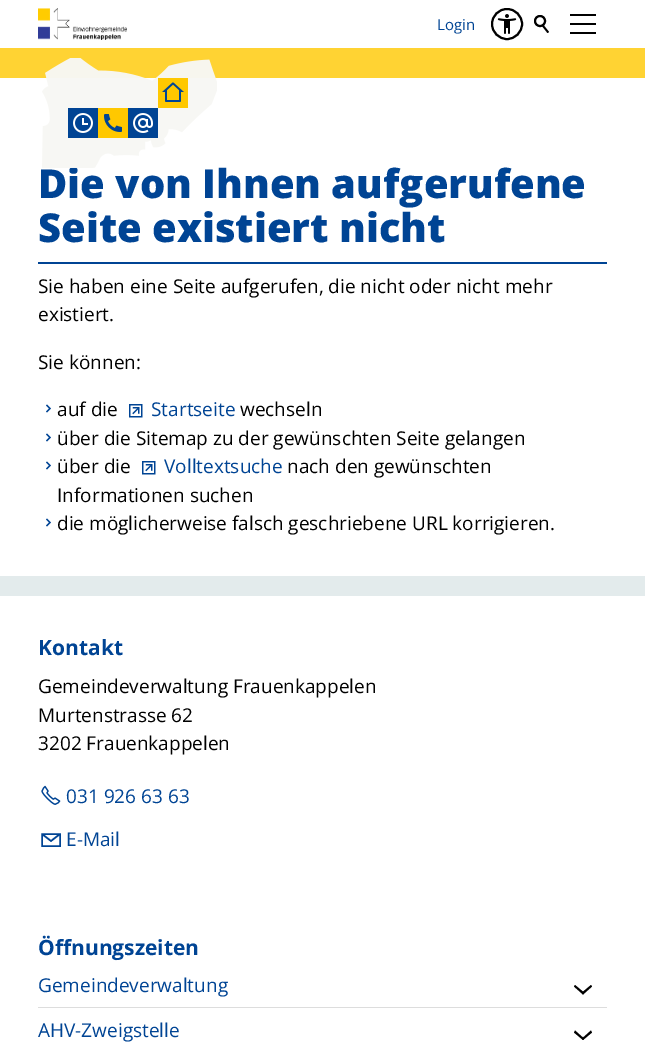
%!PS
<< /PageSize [645 1043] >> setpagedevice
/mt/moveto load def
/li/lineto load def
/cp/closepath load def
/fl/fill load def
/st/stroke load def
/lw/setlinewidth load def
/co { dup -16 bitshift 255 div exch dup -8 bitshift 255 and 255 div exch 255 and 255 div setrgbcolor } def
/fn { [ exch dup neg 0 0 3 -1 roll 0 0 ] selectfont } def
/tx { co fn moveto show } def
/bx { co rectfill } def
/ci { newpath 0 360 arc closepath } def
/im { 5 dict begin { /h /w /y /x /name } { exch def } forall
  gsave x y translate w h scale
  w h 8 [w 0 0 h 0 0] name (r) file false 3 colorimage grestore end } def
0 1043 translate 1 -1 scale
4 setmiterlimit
0 0 645 1043 16#E3EBEC bx
0 0 645 576 16#FFFFFF bx
0 48 645 30 16#FFD333 bx
(media/1.raw) 38 8 89 32 im
(media/7.raw) 497 14 20 20 im
16#000000 co
2 lw
507 24 15 ci st
540 21 5 ci st
543.5 25 mt 549 32 li 547.5 33 li 542 26 li cp fl
570 14 26 2 16#000000 bx
570 23 26 2 16#000000 bx
570 32 26 2 16#000000 bx
38 262 569 2 16#004494 bx
1.2 lw
46.5 405 mt 50 408.5 li 46.5 412 li st
(media/8.raw) 129 404 14 14 im
46.5 434 mt 50 437.5 li 46.5 441 li st
46.5 462 mt 50 465.5 li 46.5 469 li st
(media/8.raw) 142 461 14 14 im
46.5 519 mt 50 522.5 li 46.5 526 li st
0 596 645 447 16#FFFFFF bx
(media/9.raw) 41 785 20 20 im
16#004494 co
1.5 lw
42 834 mt 60 834 li 60 846 li 42 846 li cp 42 834 mt 51 841 li 60 834 li st
38 1007 569 1 16#DDDDDD bx
16#000000 co
575 985 mt 584 992.5 li 583 994.5 li 574 986.5 li cp fl
582 992.5 mt 591 985 li 592 986.5 li 583 994.5 li cp fl
575 1030.5 mt 584 1038.5 li 583 1040 li 574 1032.5 li cp fl
582 1038.5 mt 591 1030.5 li 592 1032.5 li 583 1040 li cp fl
(Login) 437 30 /OpenSans-Regular 15 16#004494 tx
(Die von Ihnen aufgerufene) 38 198 /OpenSans-ExtraBold 39.9 16#004494 tx
(media/2.raw) 42 58 175 110 im
68 108 30 30 16#004494 bx
(media/4.raw) 73 113 20 20 im
128 108 30 30 16#004494 bx
(media/6.raw) 133 113 20 20 im
98 108 30 30 16#FFC800 bx
(media/5.raw) 104 114 18 18 im
158 78 30 30 16#FFC800 bx
(media/3.raw) 162 82 22 20 im
(Seite existiert nicht) 38 242 /OpenSans-ExtraBold 39.9 16#004494 tx
(Sie haben eine Seite aufgerufen, die nicht oder nicht mehr) 38 293 /OpenSans-Regular 19 16#000000 tx
(existiert.) 38 321 /OpenSans-Regular 19 16#000000 tx
(Sie können:) 38 369 /OpenSans-Regular 19 16#000000 tx
(auf die) 57 416 /OpenSans-Regular 19 16#000000 tx
(Startseite) 151 416 /OpenSans-Regular 19 16#004494 tx
(wechseln) 240 416 /OpenSans-Regular 19 16#000000 tx
(über die Sitemap zu der gewünschten Seite gelangen) 57 445 /OpenSans-Regular 19 16#000000 tx
(über die) 57 473 /OpenSans-Regular 19 16#000000 tx
(Volltextsuche) 164 473 /OpenSans-Regular 19 16#004494 tx
(nach den gewünschten) 287 473 /OpenSans-Regular 19 16#000000 tx
(Informationen suchen) 57 502 /OpenSans-Regular 19 16#000000 tx
(die möglicherweise falsch geschriebene URL korrigieren.) 57 530 /OpenSans-Regular 19 16#000000 tx
(Kontakt) 38 655 /OpenSans-Bold 21 16#004494 tx
(Gemeindeverwaltung Frauenkappelen) 38 693 /OpenSans-Regular 19 16#000000 tx
(Murtenstrasse 62) 38 722 /OpenSans-Regular 19 16#000000 tx
(3202 Frauenkappelen) 38 750 /OpenSans-Regular 19 16#000000 tx
(031 926 63 63) 66 803 /OpenSans-Regular 19 16#004494 tx
(E-Mail) 66 846 /OpenSans-Regular 19 16#004494 tx
(Öffnungszeiten) 38 955 /OpenSans-Bold 21 16#004494 tx
(Gemeindeverwaltung) 38 992 /OpenSans-Regular 19 16#004494 tx
(AHV-Zweigstelle) 38 1037 /OpenSans-Regular 19 16#004494 tx
showpage
